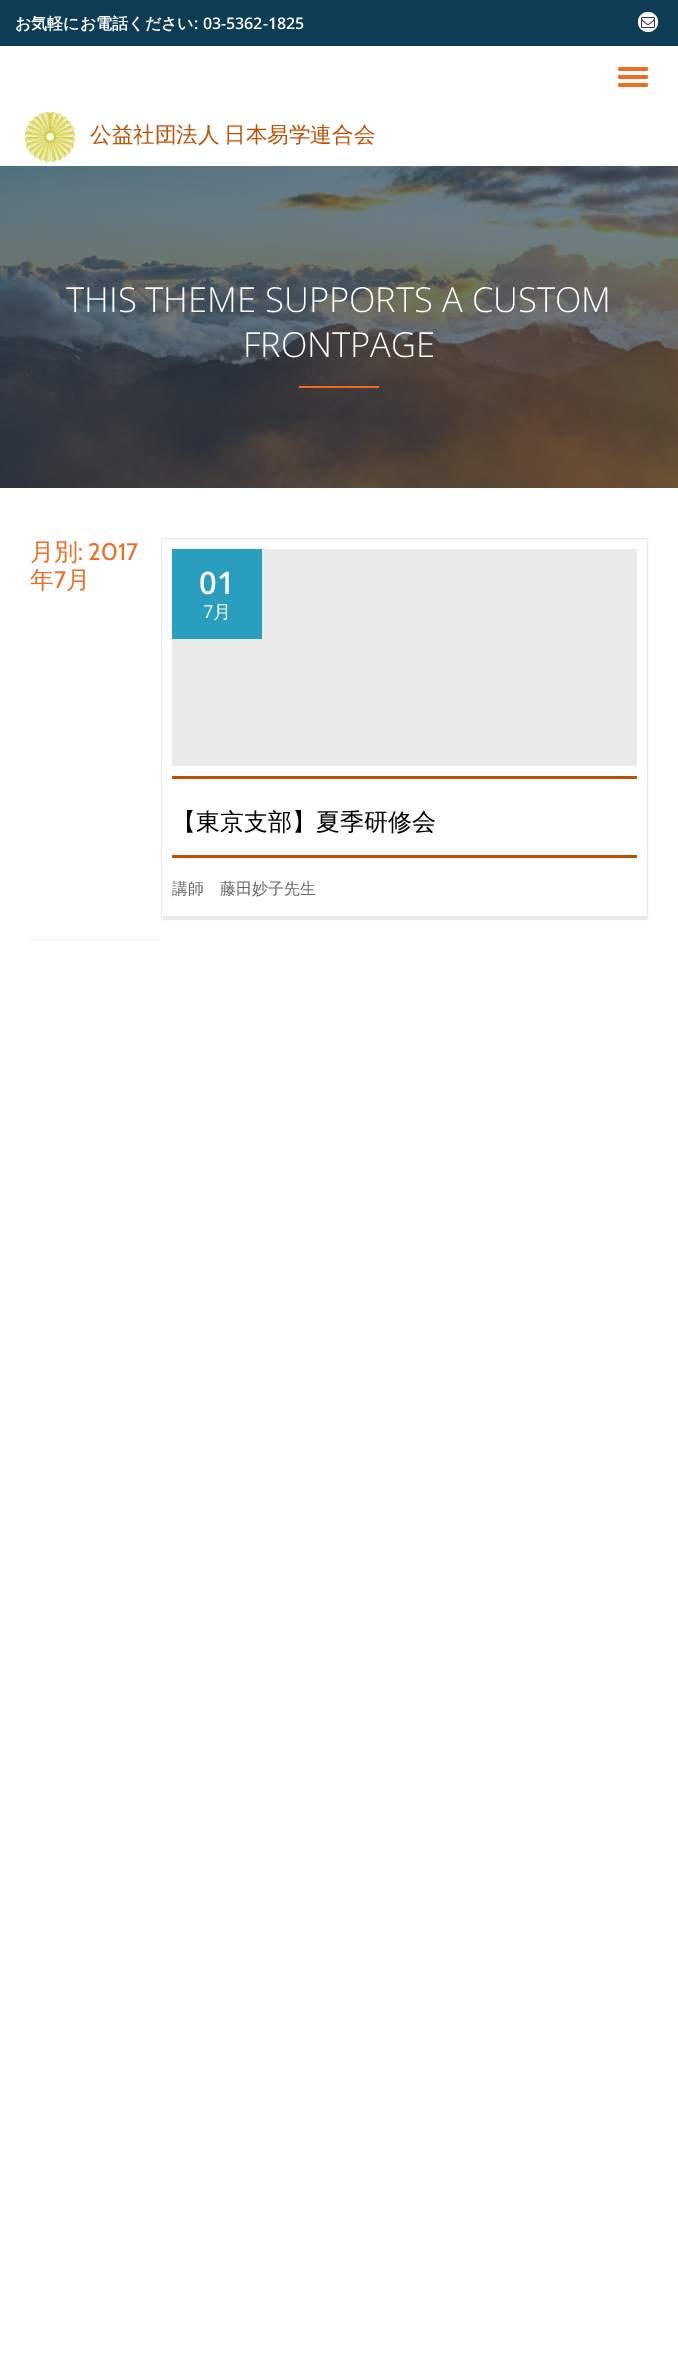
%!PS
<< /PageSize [678 2365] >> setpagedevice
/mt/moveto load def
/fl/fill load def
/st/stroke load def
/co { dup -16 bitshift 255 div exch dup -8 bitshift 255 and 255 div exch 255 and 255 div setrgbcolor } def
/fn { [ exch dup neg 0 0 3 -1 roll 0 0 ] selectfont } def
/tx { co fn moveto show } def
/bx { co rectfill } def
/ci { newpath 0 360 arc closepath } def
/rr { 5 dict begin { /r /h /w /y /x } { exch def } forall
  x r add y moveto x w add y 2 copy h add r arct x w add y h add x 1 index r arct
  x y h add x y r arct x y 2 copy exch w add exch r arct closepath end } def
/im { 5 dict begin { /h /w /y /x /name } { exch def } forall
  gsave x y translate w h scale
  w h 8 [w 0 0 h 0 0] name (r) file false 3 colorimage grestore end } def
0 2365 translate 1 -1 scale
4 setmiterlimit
0 0 678 2365 16#FFFFFF bx
0 0 678 46 16#0D3C55 bx
16#FFFFFF co
648 22 10 ci fl
(media/1.raw) 641 17 14 11 im
16#F16C20 co
618 67 30 4 2 rr fl
618 75 30 4 2 rr fl
618 83 30 4 2 rr fl
(media/2.raw) 25 112 50 50 im
(media/3.raw) 0 166 678 322 im
299 386 80 2 16#F16C20 bx
30 939 131 1 16#EEEEEE bx
16#EAEAEA co
161.5 538.5 486 381 2.5 rr st
163 916 484 3 16#EAEAEA bx
172 549 465 217 16#EAEAEA bx
172 549 90 90 16#299EBF bx
172 776 465 3 16#BE5000 bx
172 855 465 3 16#BE5000 bx
(お気軽にお電話ください) 15 29 /WenQuanYiZenHei-Bold 16 16#FFFFFF tx
(: 03-5362-1825) 194 29 /OpenSans-SemiBold 16 16#FFFFFF tx
/WenQuanYiZenHei-Medium 21.6 fn
16#BE5000 co
90 142 mt -2 0 32 (公益社団法人 日本易学連合会) widthshow
(THIS THEME SUPPORTS A CUSTOM) 66 312 /OpenSans-Light 34.5 16#FFFFFF tx
(FRONTPAGE) 243 357 /OpenSans-Light 34.5 16#FFFFFF tx
(月別) 30 560 /WenQuanYiZenHei-Medium 24 16#F16C20 tx
(: 2017) 78 560 /Cabin-Regular 24 16#F16C20 tx
(年) 30 588 /WenQuanYiZenHei-Medium 24 16#F16C20 tx
(7) 54 588 /Cabin-Regular 24 16#F16C20 tx
(月) 66 588 /WenQuanYiZenHei-Medium 24 16#F16C20 tx
(01) 199 594 /OpenSans-SemiBold 31 16#FFFFFF tx
(7) 203 618 /OpenSans-Regular 18 16#FFFFFF tx
(月) 213 618 /WenQuanYiZenHei-Medium 18 16#FFFFFF tx
(【東京支部】夏季研修会) 172 830 /WenQuanYiZenHei-Medium 24 16#000000 tx
(講師　藤田妙子先生) 172 894 /WenQuanYiZenHei-Medium 16 16#666666 tx
showpage
